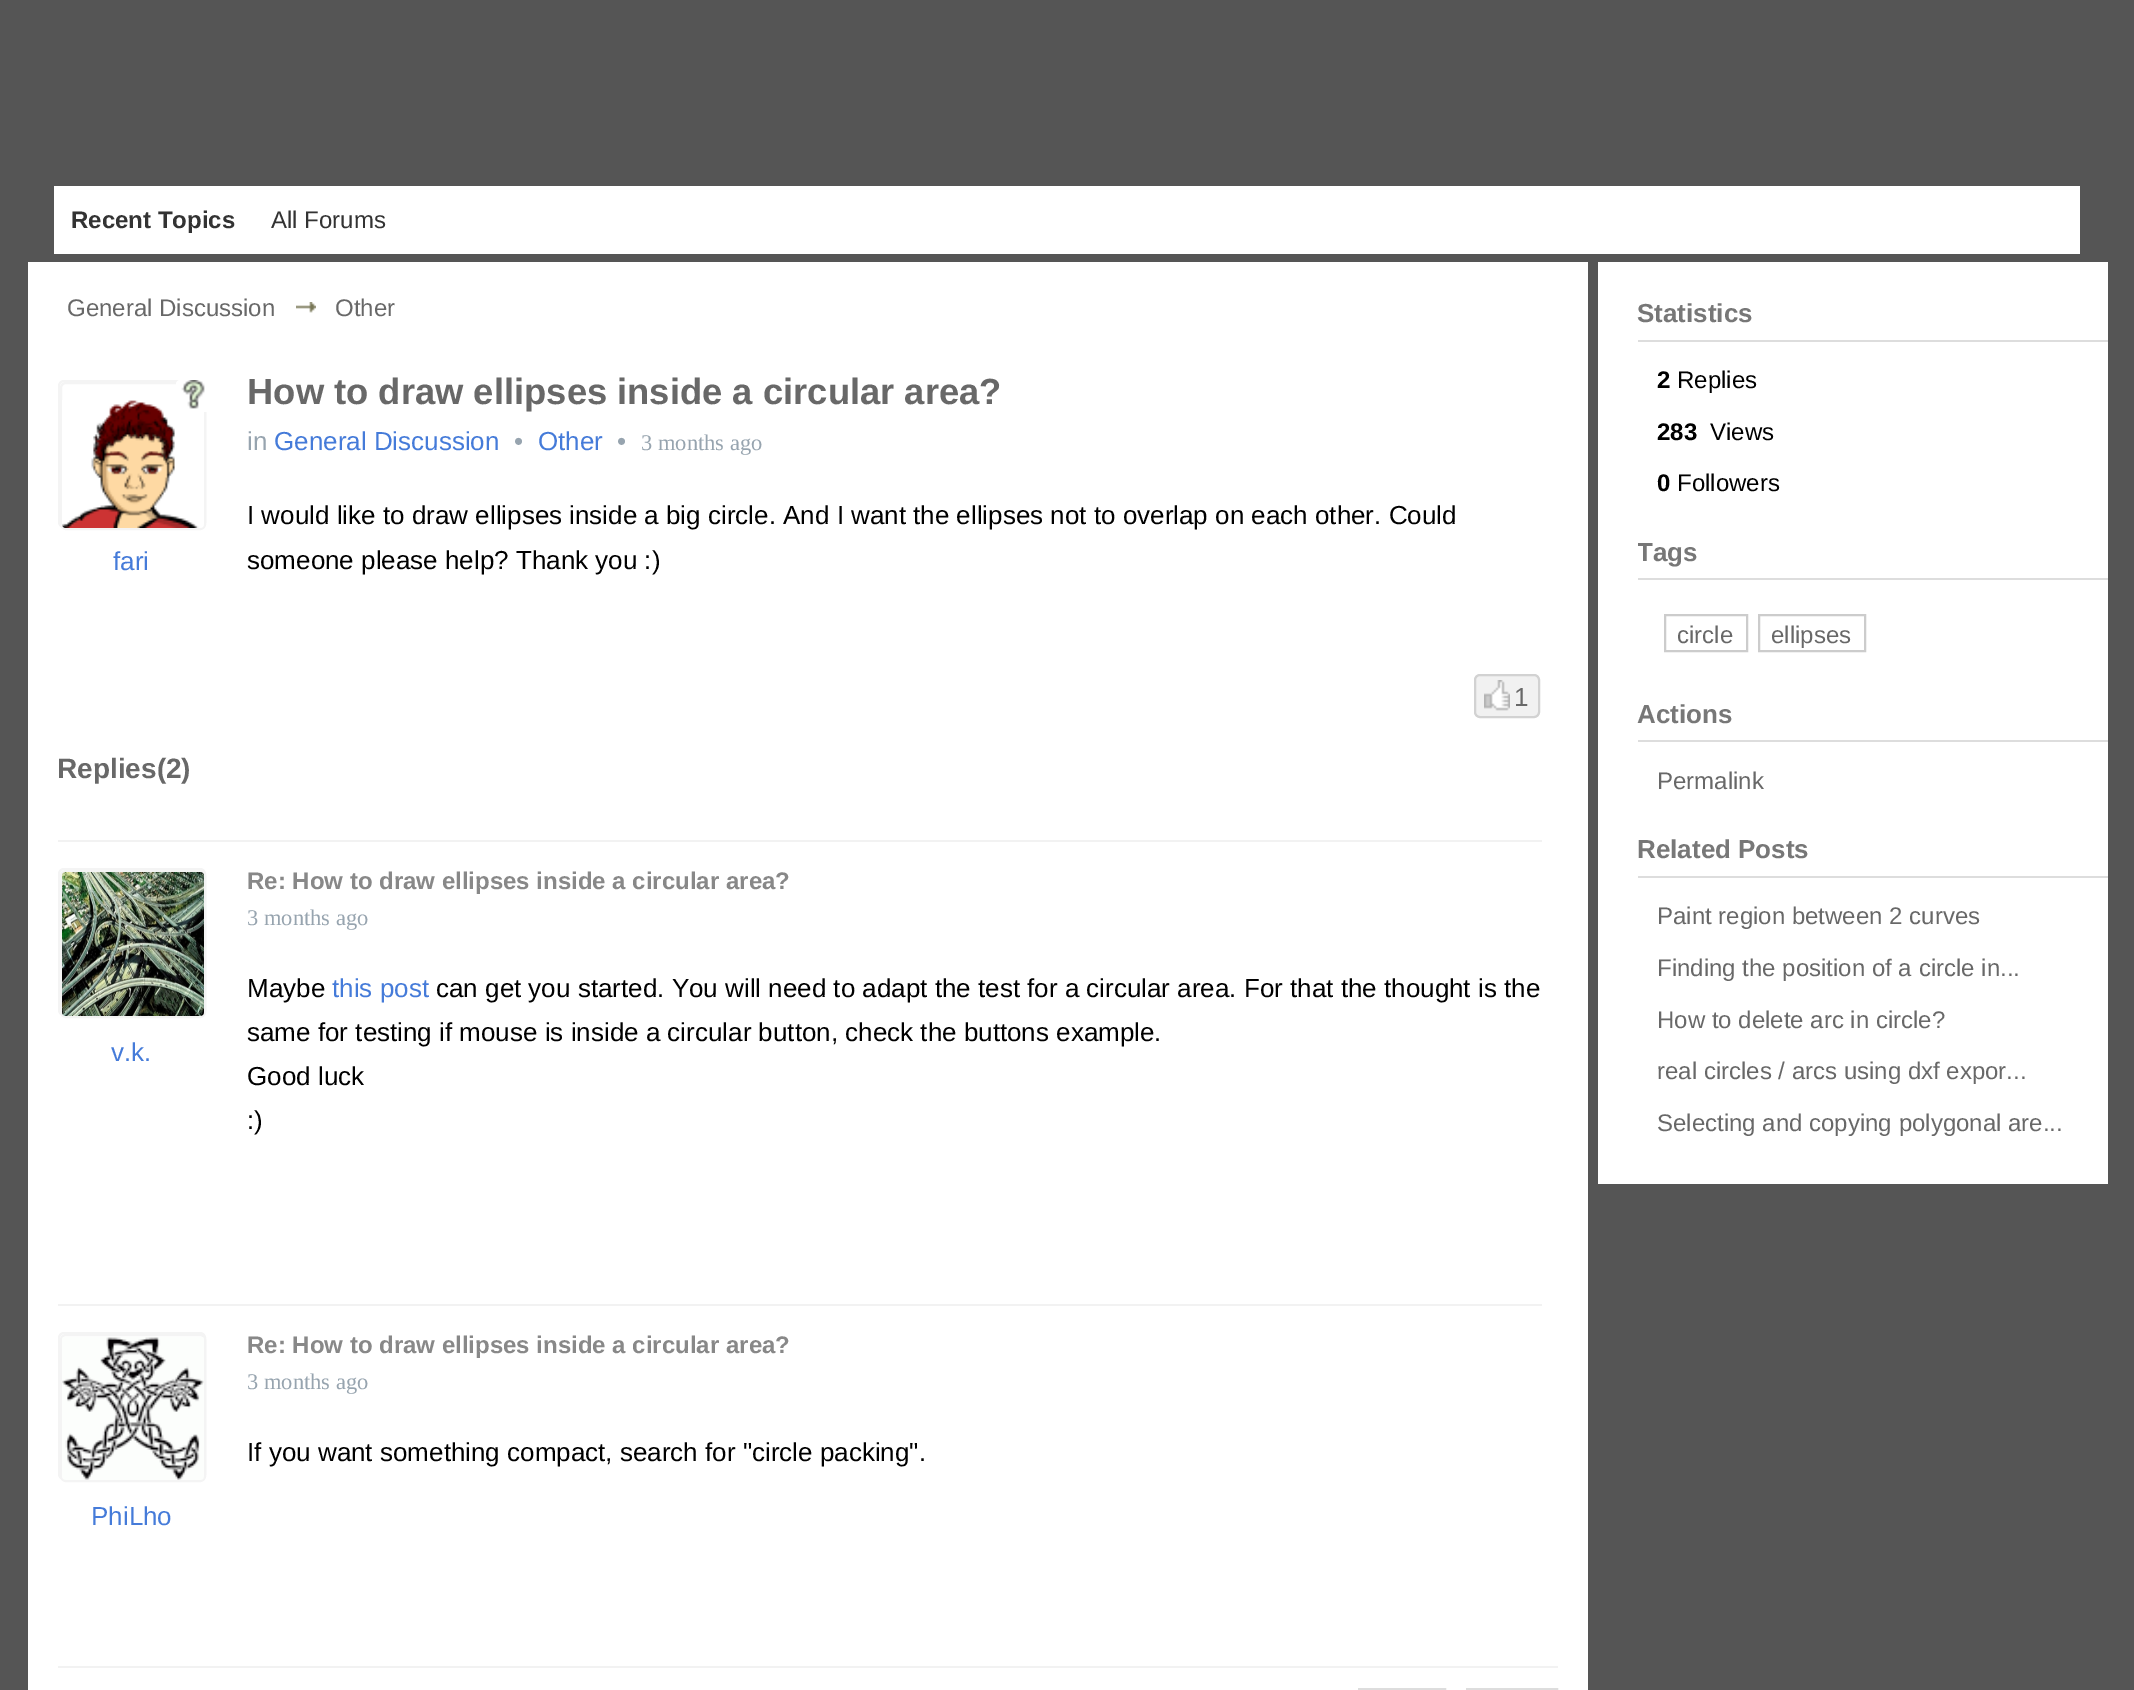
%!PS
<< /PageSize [2134 1690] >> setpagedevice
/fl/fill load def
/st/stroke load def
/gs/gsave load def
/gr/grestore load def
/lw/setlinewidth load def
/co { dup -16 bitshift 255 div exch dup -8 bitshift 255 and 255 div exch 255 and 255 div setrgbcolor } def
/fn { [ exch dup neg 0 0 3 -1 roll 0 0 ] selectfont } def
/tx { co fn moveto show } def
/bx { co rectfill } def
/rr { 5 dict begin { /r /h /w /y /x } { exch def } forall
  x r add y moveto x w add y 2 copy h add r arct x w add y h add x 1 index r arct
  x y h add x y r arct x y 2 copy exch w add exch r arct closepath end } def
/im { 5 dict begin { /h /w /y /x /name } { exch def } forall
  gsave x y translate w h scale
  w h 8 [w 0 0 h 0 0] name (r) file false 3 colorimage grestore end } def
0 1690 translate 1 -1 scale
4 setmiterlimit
0 0 2134 1690 16#555555 bx
54 186 2026 68 16#FFFFFF bx
28 262 1560 1428 16#FFFFFF bx
(media/1.raw) 296 302 20 11 im
16#F4F4F4 co
2 lw
59 381 146 146 5 rr st
61 383 144 146 5 rr st
(media/3.raw) 62 400 142 128 im
16#FFFFFF co
176 380 36 32 4 rr fl
(media/2.raw) 181 380 24 29 im
16#F1F1F1 co
1475 675 64 42 5 rr gs fl gr
16#D2D2D2 co
st
(media/4.raw) 1484 680 26 31 im
58 840 1484 2 16#F2F2F2 bx
16#F4F4F4 co
59 869 146 146 5 rr st
61 871 144 146 5 rr st
(media/5.raw) 62 872 142 144 im
58 1304 1484 2 16#F2F2F2 bx
16#F4F4F4 co
59 1333 146 146 5 rr st
61 1335 144 146 5 rr st
(media/6.raw) 62 1337 142 143 im
58 1666 1500 2 16#F2F2F2 bx
16#DDDDDD co
1359 1689 86 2 rectstroke
1467 1689 90 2 rectstroke
1598 262 510 922 16#FFFFFF bx
1638 340 470 2 16#DDDDDD bx
1638 578 470 2 16#DDDDDD bx
16#CCCCCC co
1665 615 82 36 rectstroke
1759 615 106 36 rectstroke
1638 740 470 2 16#DDDDDD bx
1638 876 470 2 16#DDDDDD bx
(Recent Topics) 71 228 /LiberationSans-Bold 24 16#333333 tx
(All Forums) 271 228 /LiberationSans-Regular 24 16#333333 tx
(General Discussion) 67 316 /LiberationSans-Regular 24 16#686868 tx
(Other) 335 316 /LiberationSans-Regular 24 16#686868 tx
(fari) 113 570 /LiberationSans-Regular 26 16#457BD9 tx
(How to draw ellipses inside a circular area?) 247 404 /LiberationSans-Bold 36.4 16#686868 tx
(in) 247 450 /LiberationSans-Regular 26 16#97A4AF tx
(General Discussion) 274 450 /LiberationSans-Regular 26 16#457BD9 tx
(•) 514 450 /LiberationSans-Regular 26 16#97A4AF tx
(Other) 538 450 /LiberationSans-Regular 26 16#457BD9 tx
(•) 617 450 /LiberationSans-Regular 26 16#97A4AF tx
(3 months ago) 641 450 /LiberationSerif-Regular 22.5 16#97A4AF tx
(I would like to draw ellipses inside a big circle. And I want the ellipses not to overlap on each other. Could) 247 524 /LiberationSans-Regular 26 16#000000 tx
(someone please help? Thank you :\)) 247 569 /LiberationSans-Regular 26 16#000000 tx
(1) 1514 706 /LiberationSans-Regular 26 16#686868 tx
(Replies\(2\)) 57 778 /LiberationSans-Bold 28 16#686868 tx
(v.k.) 111 1061 /LiberationSans-Regular 26 16#457BD9 tx
(Re: How to draw ellipses inside a circular area?) 247 889 /LiberationSans-Bold 24 16#888888 tx
(3 months ago) 247 925 /LiberationSerif-Regular 22.5 16#97A4AF tx
(Maybe) 247 997 /LiberationSans-Regular 26 16#000000 tx
(this post) 332 997 /LiberationSans-Regular 26 16#457BD9 tx
(can get you started. You will need to adapt the test for a circular area. For that the thought is the) 436 997 /LiberationSans-Regular 26 16#000000 tx
(same for testing if mouse is inside a circular button, check the buttons example.) 247 1041 /LiberationSans-Regular 26 16#000000 tx
(Good luck) 247 1085 /LiberationSans-Regular 26 16#000000 tx
(:\)) 247 1129 /LiberationSans-Regular 26 16#000000 tx
(Re: How to draw ellipses inside a circular area?) 247 1353 /LiberationSans-Bold 24 16#888888 tx
(3 months ago) 247 1389 /LiberationSerif-Regular 22.5 16#97A4AF tx
(If you want something compact, search for "circle packing".) 247 1461 /LiberationSans-Regular 26 16#000000 tx
(PhiLho) 91 1525 /LiberationSans-Regular 26 16#457BD9 tx
(Statistics) 1637 322 /LiberationSans-Bold 26 16#777777 tx
(2) 1657 388 /LiberationSans-Bold 24 16#000000 tx
(Replies) 1677 388 /LiberationSans-Regular 24 16#000000 tx
(283) 1657 440 /LiberationSans-Bold 24 16#000000 tx
(Views) 1710 440 /LiberationSans-Regular 24 16#000000 tx
(0) 1657 491 /LiberationSans-Bold 24 16#000000 tx
(Followers) 1677 491 /LiberationSans-Regular 24 16#000000 tx
gs
1638 524 470 54 rectclip
(Tags) 1637 561 /LiberationSans-Bold 26 16#777777 tx
gr
(circle) 1677 643 /LiberationSans-Regular 24 16#686868 tx
(ellipses) 1771 643 /LiberationSans-Regular 24 16#686868 tx
(Actions) 1637 723 /LiberationSans-Bold 26 16#777777 tx
(Permalink) 1657 789 /LiberationSans-Regular 24 16#686868 tx
(Related Posts) 1637 858 /LiberationSans-Bold 26 16#777777 tx
(Paint region between 2 curves) 1657 924 /LiberationSans-Regular 24 16#686868 tx
(Finding the position of a circle in...) 1657 976 /LiberationSans-Regular 24 16#686868 tx
(How to delete arc in circle?) 1657 1028 /LiberationSans-Regular 24 16#686868 tx
(real circles / arcs using dxf expor...) 1657 1079 /LiberationSans-Regular 24 16#686868 tx
(Selecting and copying polygonal are...) 1657 1131 /LiberationSans-Regular 24 16#686868 tx
showpage
